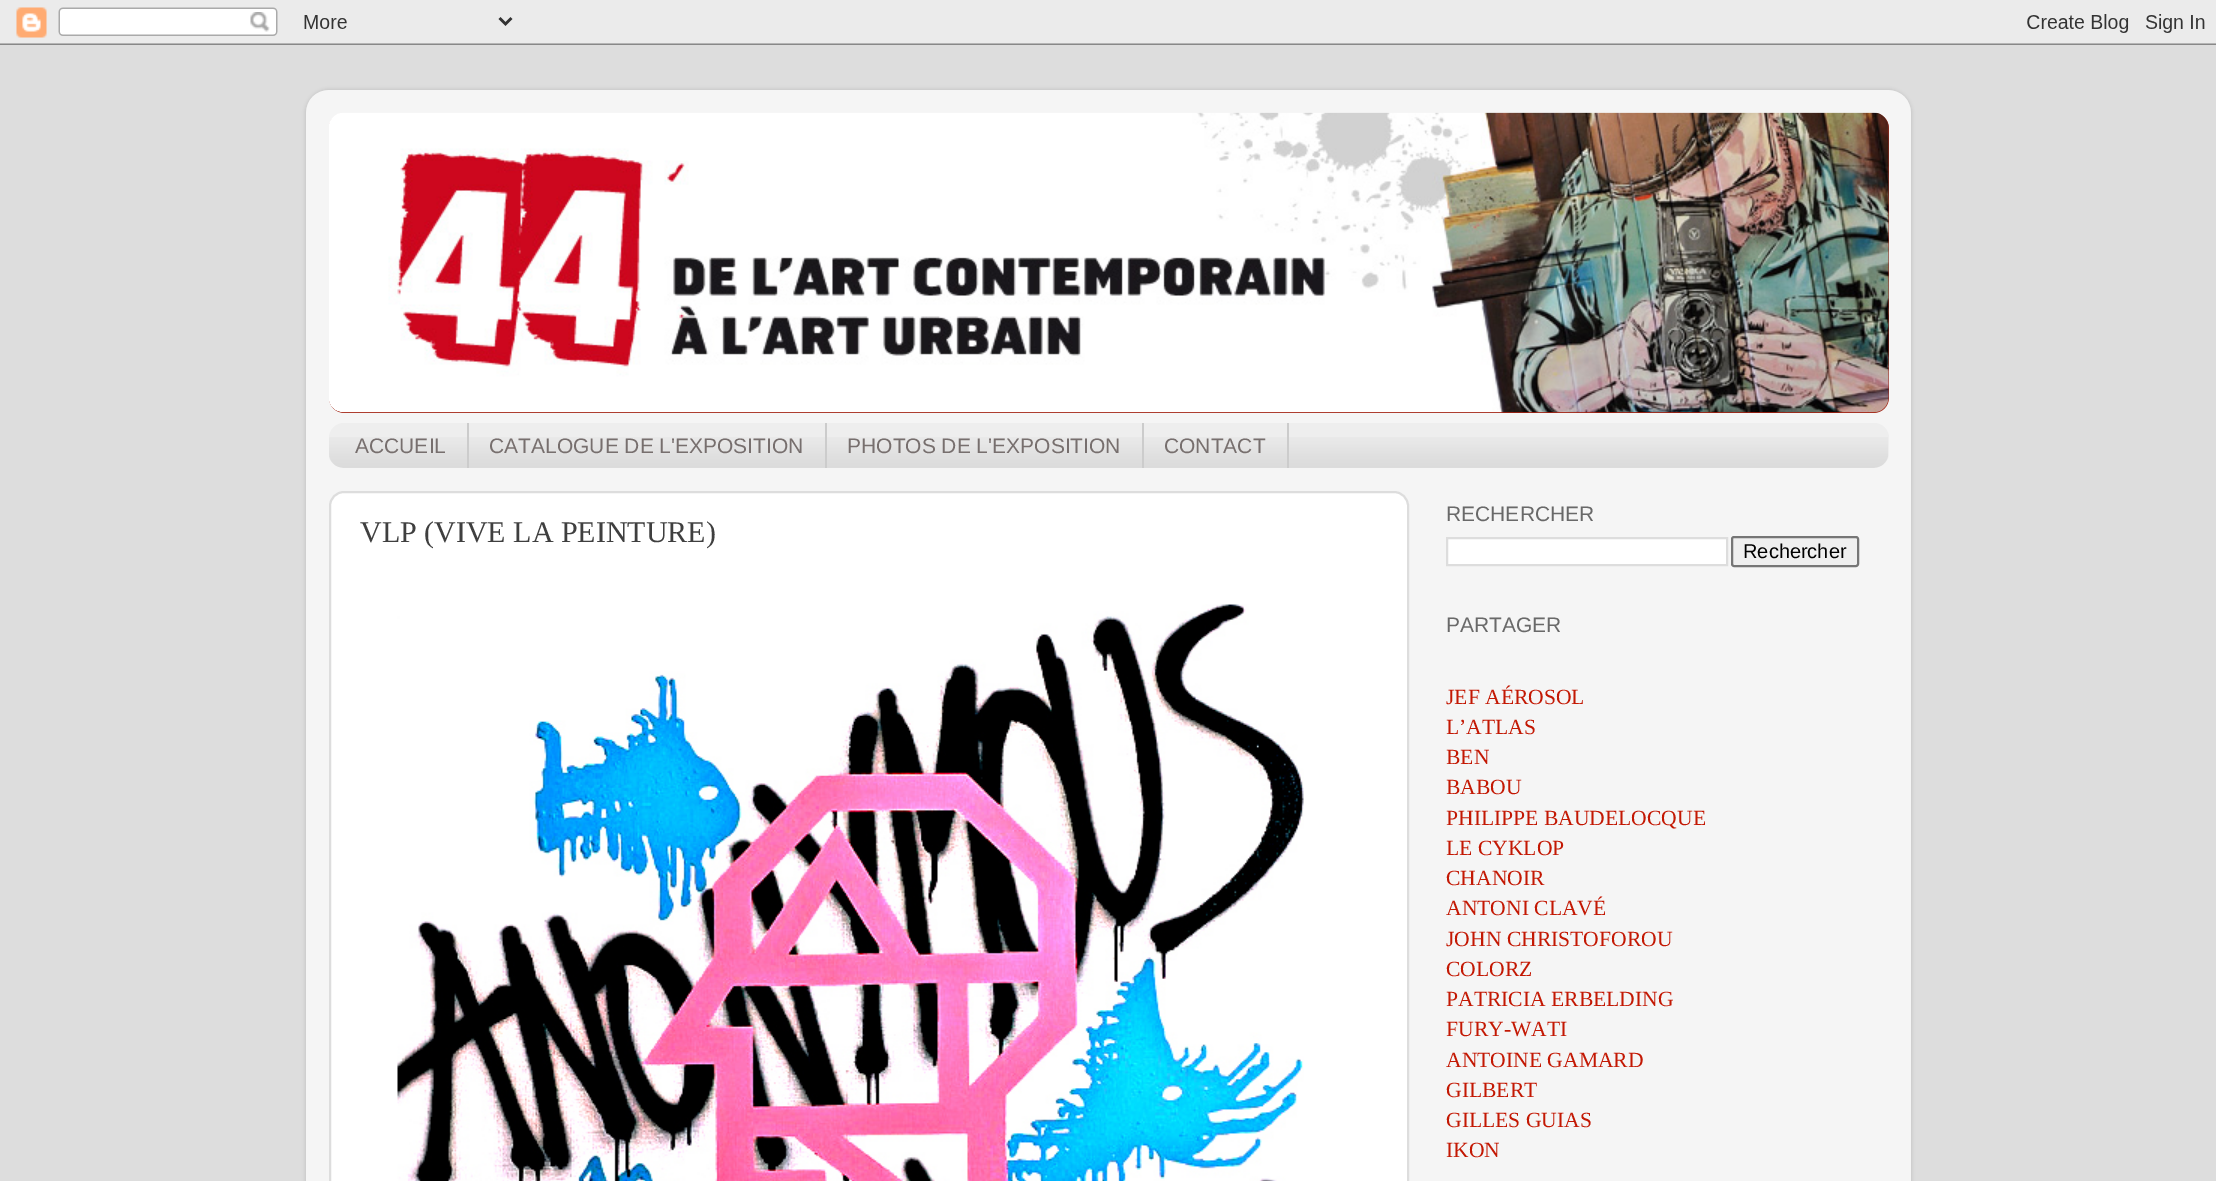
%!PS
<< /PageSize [2216 1181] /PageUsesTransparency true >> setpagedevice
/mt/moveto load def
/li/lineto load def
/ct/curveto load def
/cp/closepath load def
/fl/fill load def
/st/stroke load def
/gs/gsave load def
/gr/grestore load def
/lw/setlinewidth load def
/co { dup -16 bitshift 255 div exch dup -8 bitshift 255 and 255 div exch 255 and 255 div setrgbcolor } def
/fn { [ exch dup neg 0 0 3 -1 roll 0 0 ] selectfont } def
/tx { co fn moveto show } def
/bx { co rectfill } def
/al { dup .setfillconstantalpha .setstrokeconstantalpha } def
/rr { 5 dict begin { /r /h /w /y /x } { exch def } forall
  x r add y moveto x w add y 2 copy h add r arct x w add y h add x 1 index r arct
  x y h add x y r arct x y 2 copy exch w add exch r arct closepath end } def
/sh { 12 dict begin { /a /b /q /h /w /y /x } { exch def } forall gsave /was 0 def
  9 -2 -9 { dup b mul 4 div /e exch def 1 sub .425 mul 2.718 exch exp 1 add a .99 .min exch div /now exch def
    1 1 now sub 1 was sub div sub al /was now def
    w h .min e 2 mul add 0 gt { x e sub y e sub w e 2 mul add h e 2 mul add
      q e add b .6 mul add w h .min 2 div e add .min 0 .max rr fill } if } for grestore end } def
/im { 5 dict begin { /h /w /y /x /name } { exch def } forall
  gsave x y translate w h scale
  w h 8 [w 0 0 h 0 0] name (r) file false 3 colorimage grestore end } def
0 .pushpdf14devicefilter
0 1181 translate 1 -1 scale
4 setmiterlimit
0 0 2216 1181 16#DDDDDD bx
(media/1.raw) 0 0 2216 45 im
gs
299 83 mt 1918 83 li 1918 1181 li 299 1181 li cp 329 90 mt 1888 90 li 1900.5 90 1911 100.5 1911 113 ct 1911 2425 li 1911 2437.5 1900.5 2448 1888 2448 ct 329 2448 li 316.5 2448 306 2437.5 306 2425 ct 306 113 li 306 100.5 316.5 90 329 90 ct cp eoclip newpath
16#000000 co
306 90 1605 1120 23 2 .15 sh
gr
(media/2.raw) 306 90 1605 1091 im
16#A22212 co
329 113 1560 300 15 rr fl
(media/3.raw) 329 113 1560 65 im
(media/4.raw) 329 112 1560 301 im
16#EEEEEE co
329 423 1560 45 15 rr fl
(media/5.raw) 329 437 1559 31 im
467 423 2 45 16#CCCCCC bx
825 423 2 45 16#CCCCCC bx
1142 423 2 45 16#CCCCCC bx
1287 423 2 45 16#CCCCCC bx
16#FFFFFF co
330 492 1078 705 14 rr gs fl gr
16#DDDDDD co
2 lw
st
(media/6.raw) 397 604 907 577 im
16#FFFFFF co
1447 538 mt 1727 538 li 1727 565 li 1447 565 li cp gs fl gr
16#DDDDDD co
st
16#EFEFEF co
1732 537 126 29 2 rr gs fl gr
16#767676 co
st
(ACCUEIL) 355 453 /LiberationSans-Regular 21 16#776F6E tx
(CATALOGUE DE L'EXPOSITION) 489 453 /LiberationSans-Regular 21 16#776F6E tx
(PHOTOS DE L'EXPOSITION) 847 453 /LiberationSans-Regular 21 16#776F6E tx
(CONTACT) 1164 453 /LiberationSans-Regular 21 16#776F6E tx
(VLP \(VIVE LA PEINTURE\)) 360 542 /LiberationSerif-Regular 30 16#3F3F3F tx
(RECHERCHER) 1446 521 /LiberationSans-Regular 21 16#696969 tx
(Rechercher) 1743 558 /LiberationSans-Regular 20 16#000000 tx
(PARTAGER) 1446 632 /LiberationSans-Regular 21 16#696969 tx
(JEF AÉROSOL) 1446 704 /LiberationSerif-Regular 21.6 16#C31803 tx
(L’ATLAS) 1446 734 /LiberationSerif-Regular 21.6 16#C31803 tx
(BEN) 1446 764 /LiberationSerif-Regular 21.6 16#C31803 tx
(BABOU) 1446 794 /LiberationSerif-Regular 21.6 16#C31803 tx
(PHILIPPE BAUDELOCQUE) 1446 825 /LiberationSerif-Regular 21.6 16#C31803 tx
(LE CYKLOP) 1446 855 /LiberationSerif-Regular 21.6 16#C31803 tx
(CHANOIR) 1446 885 /LiberationSerif-Regular 21.6 16#C31803 tx
(ANTONI CLAVÉ) 1446 915 /LiberationSerif-Regular 21.6 16#C31803 tx
(JOHN CHRISTOFOROU) 1446 946 /LiberationSerif-Regular 21.6 16#C31803 tx
(COLORZ) 1446 976 /LiberationSerif-Regular 21.6 16#C31803 tx
(PATRICIA ERBELDING) 1446 1006 /LiberationSerif-Regular 21.6 16#C31803 tx
(FURY-WATI) 1446 1036 /LiberationSerif-Regular 21.6 16#C31803 tx
(ANTOINE GAMARD) 1446 1067 /LiberationSerif-Regular 21.6 16#C31803 tx
(GILBERT) 1446 1097 /LiberationSerif-Regular 21.6 16#C31803 tx
(GILLES GUIAS) 1446 1127 /LiberationSerif-Regular 21.6 16#C31803 tx
(IKON) 1446 1157 /LiberationSerif-Regular 21.6 16#C31803 tx
.poppdf14devicefilter showpage
